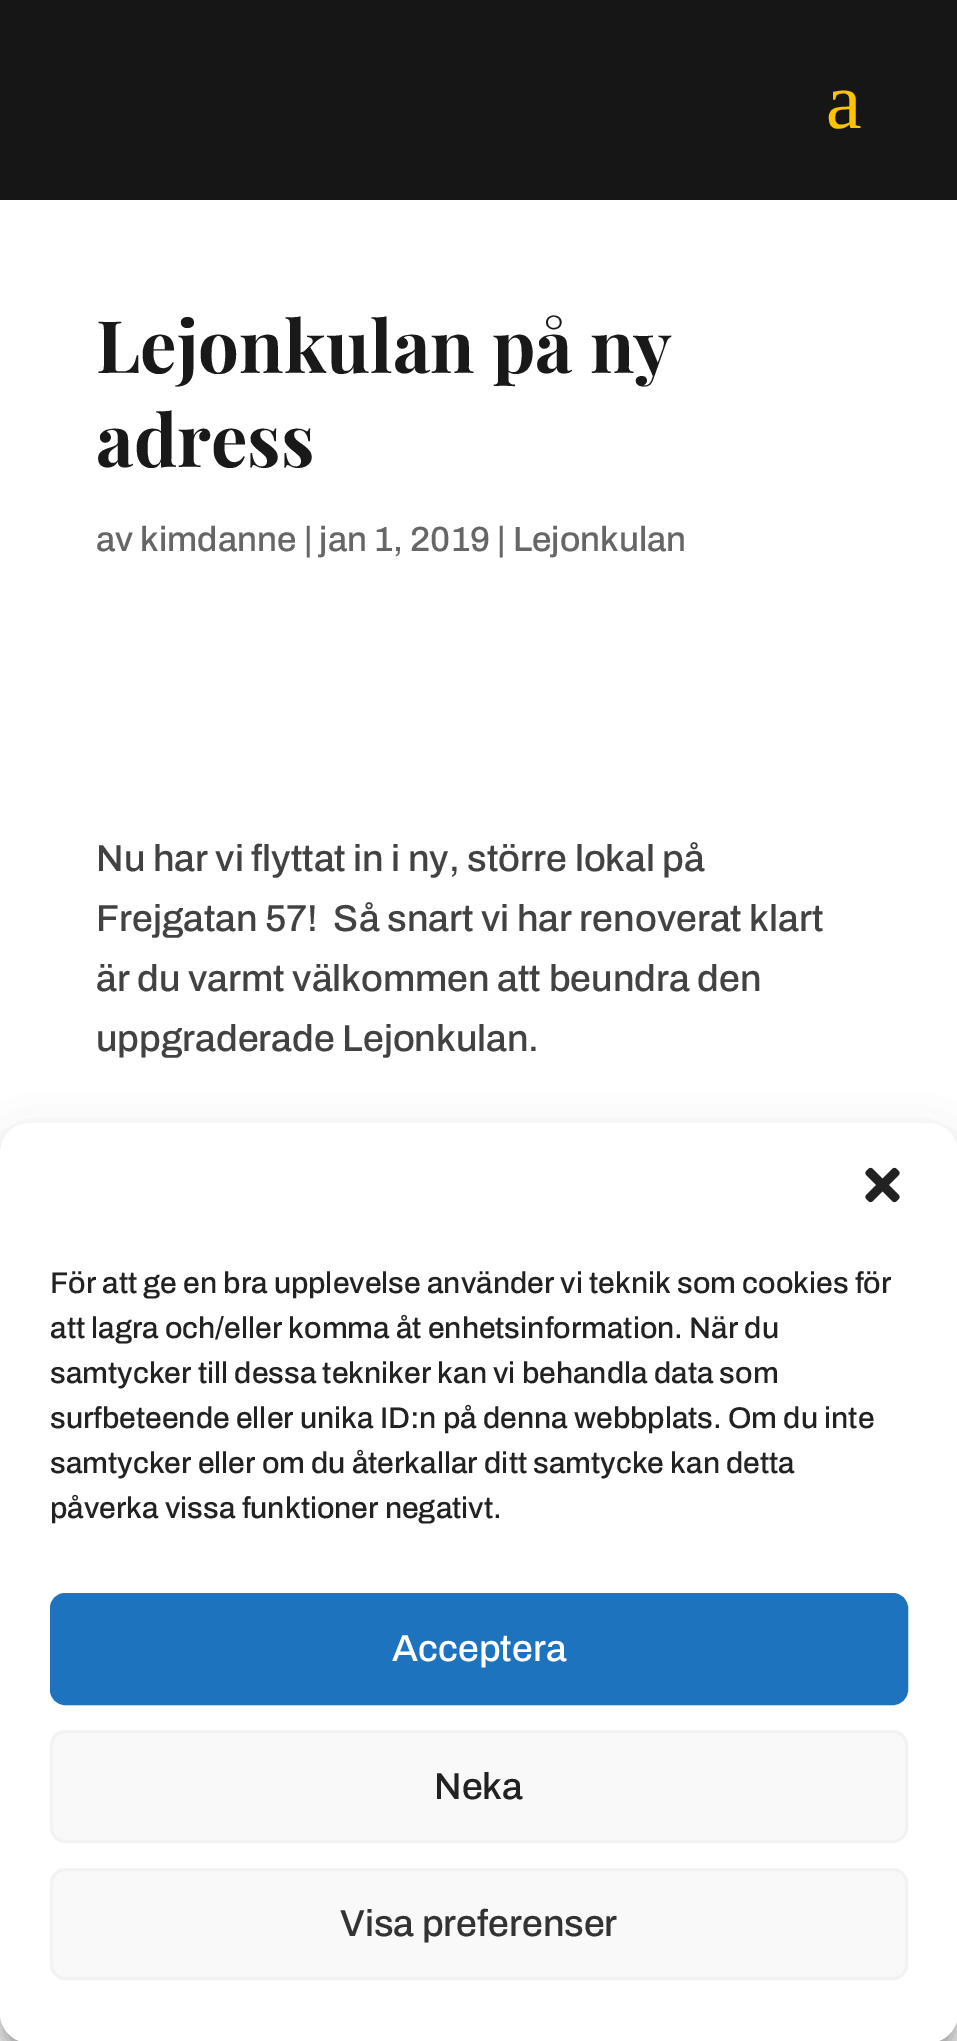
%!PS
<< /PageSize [957 2041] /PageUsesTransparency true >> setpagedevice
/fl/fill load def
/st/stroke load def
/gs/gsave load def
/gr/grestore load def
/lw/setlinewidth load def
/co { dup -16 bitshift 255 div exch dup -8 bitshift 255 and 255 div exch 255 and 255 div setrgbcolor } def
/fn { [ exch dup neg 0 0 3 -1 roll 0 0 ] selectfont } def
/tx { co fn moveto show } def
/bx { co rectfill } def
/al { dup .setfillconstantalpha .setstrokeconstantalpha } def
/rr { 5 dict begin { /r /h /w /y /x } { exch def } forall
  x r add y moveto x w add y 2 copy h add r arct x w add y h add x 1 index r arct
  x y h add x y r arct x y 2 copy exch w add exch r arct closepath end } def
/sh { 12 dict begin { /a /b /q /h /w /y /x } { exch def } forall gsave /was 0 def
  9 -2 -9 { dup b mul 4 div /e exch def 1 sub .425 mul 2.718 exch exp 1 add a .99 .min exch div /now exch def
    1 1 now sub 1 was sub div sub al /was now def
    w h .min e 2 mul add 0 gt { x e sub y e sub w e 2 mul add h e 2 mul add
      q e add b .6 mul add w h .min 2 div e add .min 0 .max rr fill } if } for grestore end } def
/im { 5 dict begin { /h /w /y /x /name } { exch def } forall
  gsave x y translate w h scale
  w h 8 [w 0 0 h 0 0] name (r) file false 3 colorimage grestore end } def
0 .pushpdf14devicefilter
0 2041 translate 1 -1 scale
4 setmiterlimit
0 0 957 2041 16#FFFFFF bx
0 0 957 200 16#161616 bx
16#000000 co
0 1138 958 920 30 7.5 .23 sh
0 1148 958 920 30 25 .19 sh
16#FFFFFF co
0 1123 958 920 30 rr fl
(media/1.raw) 865 1167 35 36 im
16#1E73BE co
51.5 1594.5 855 109 13.5 rr gs fl gr
3 lw
st
16#F9F9F9 co
51.5 1731.5 855 110 13.5 rr gs fl gr
16#F2F2F2 co
st
16#F9F9F9 co
51.5 1869.5 855 109 13.5 rr gs fl gr
16#F2F2F2 co
st
(a) 826 128 /LiberationSerif-Regular 80 16#FFC300 tx
(Lejonkulan på ny) 96 373 /PlayfairDisplay-Bold 72.5 16#191919 tx
(adress) 96 467 /PlayfairDisplay-Bold 72.5 16#191919 tx
(av kimdanne | jan 1, 2019 | Lejonkulan) 96 551 /Archivo-Medium 35 16#666666 tx
(Nu har vi flyttat in i ny, större lokal på) 96 871 /Archivo-Medium 37.5 16#424242 tx
(Frejgatan 57!  Så snart vi har renoverat klart) 96 931 /Archivo-Medium 37.5 16#424242 tx
(är du varmt välkommen att beundra den) 96 991 /Archivo-Medium 37.5 16#424242 tx
(uppgraderade Lejonkulan.) 96 1051 /Archivo-Medium 37.5 16#424242 tx
(För att ge en bra upplevelse använder vi teknik som cookies för) 50 1293 /Archivo-Medium 30 16#222222 tx
(att lagra och/eller komma åt enhetsinformation. När du) 50 1338 /Archivo-Medium 30 16#222222 tx
(samtycker till dessa tekniker kan vi behandla data som) 50 1383 /Archivo-Medium 30 16#222222 tx
(surfbeteende eller unika ID:n på denna webbplats. Om du inte) 50 1428 /Archivo-Medium 30 16#222222 tx
(samtycker eller om du återkallar ditt samtycke kan detta) 50 1473 /Archivo-Medium 30 16#222222 tx
(påverka vissa funktioner negativt.) 50 1518 /Archivo-Medium 30 16#222222 tx
(Acceptera) 392 1661 /Archivo-Medium 37.5 16#FFFFFF tx
(Neka) 434 1799 /Archivo-Medium 37.5 16#222222 tx
(Visa preferenser) 340 1936 /Archivo-Medium 37.5 16#333333 tx
.poppdf14devicefilter showpage
